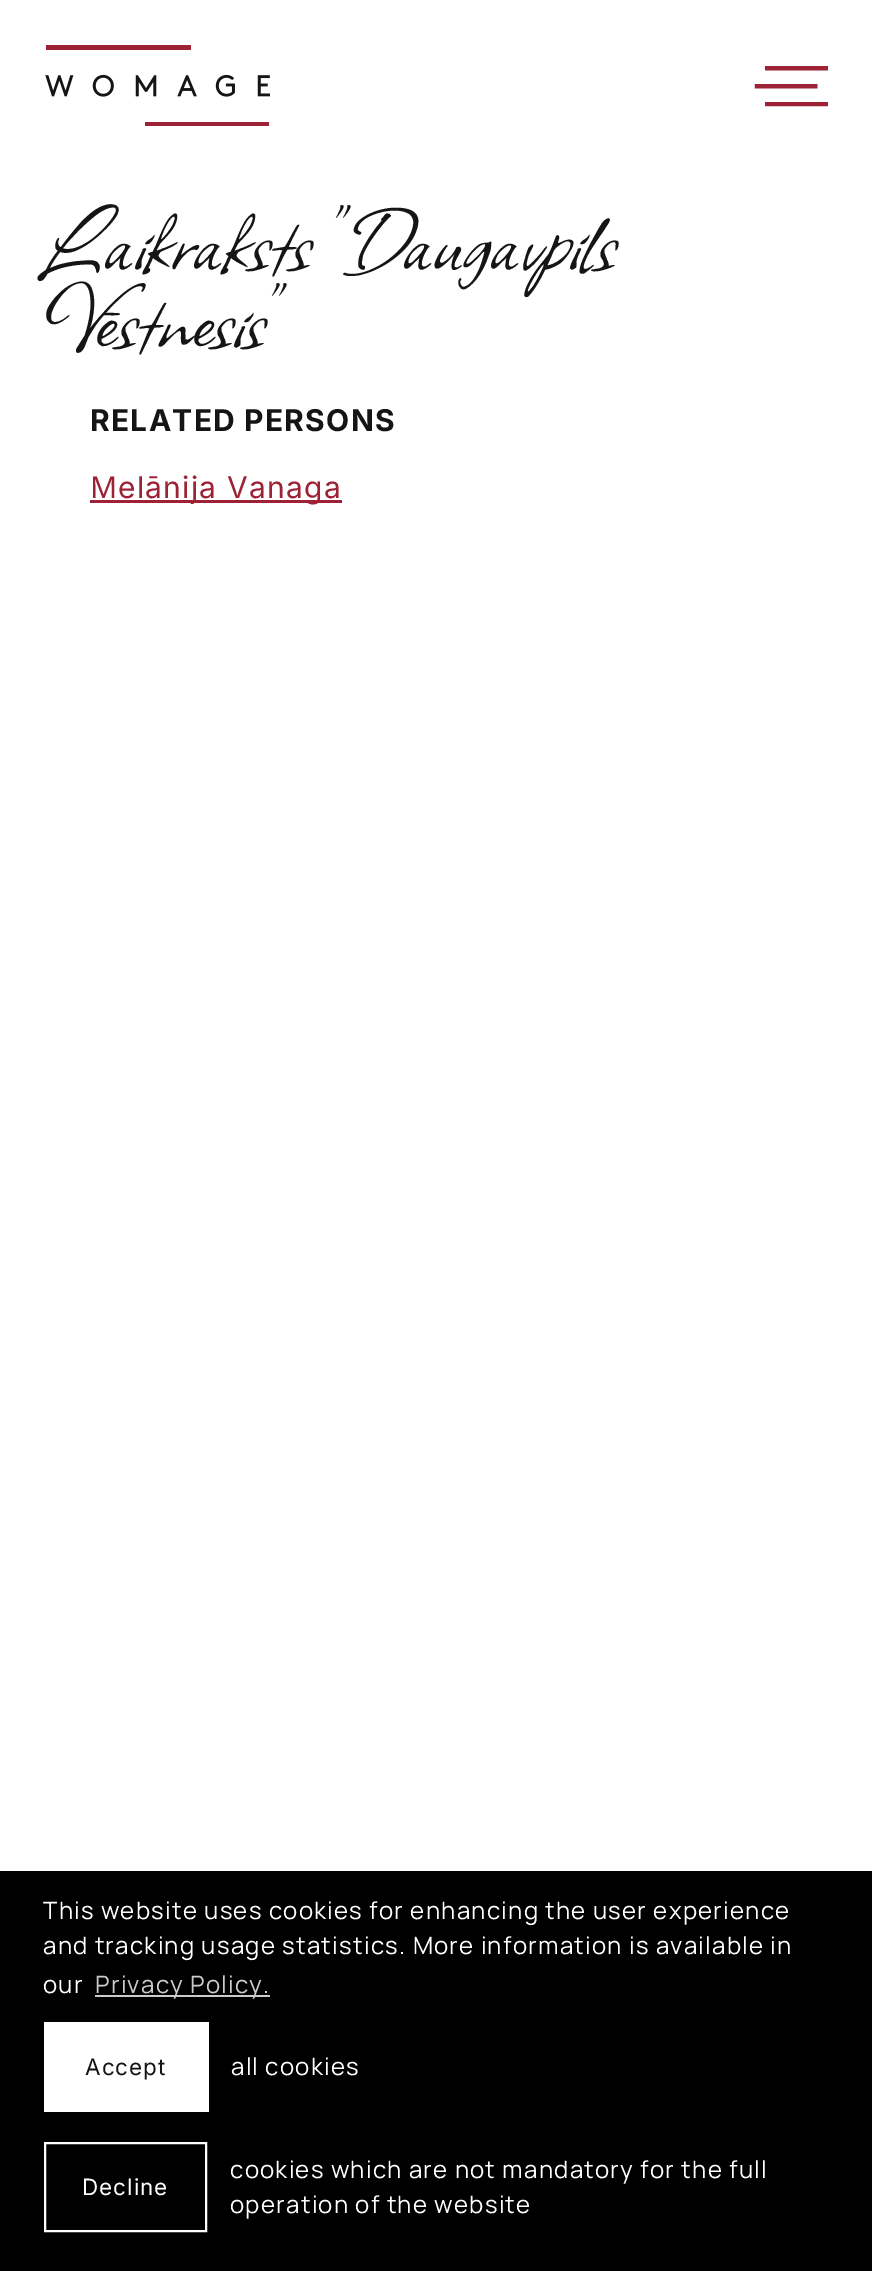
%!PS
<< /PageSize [872 2271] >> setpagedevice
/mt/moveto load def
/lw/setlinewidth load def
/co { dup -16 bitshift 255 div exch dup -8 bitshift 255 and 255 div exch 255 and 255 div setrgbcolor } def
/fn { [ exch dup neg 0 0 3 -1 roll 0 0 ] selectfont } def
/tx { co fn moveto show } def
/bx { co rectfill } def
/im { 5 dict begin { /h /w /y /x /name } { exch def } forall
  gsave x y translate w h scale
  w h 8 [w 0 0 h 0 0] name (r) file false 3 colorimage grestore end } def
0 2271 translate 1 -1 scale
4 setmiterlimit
0 0 872 2271 16#FFFFFF bx
(media/1.raw) 45 45 225 81 im
(media/2.raw) 754 66 74 41 im
90 500 252 3 16#9D2235 bx
0 1871 872 400 16#000000 bx
95 1995 175 2 16#CCCCCC bx
44 2022 165 90 16#FFFFFF bx
2 lw
45 2143 161 88 rectstroke
(Laikraksts "Daugavpils) 45 267 /Allison-Regular 104 16#151515 tx
(Vēstnesis") 45 345 /Allison-Regular 104 16#151515 tx
/Inter-Bold 30 fn
90 431 mt 1.25 0 (RELATED PERSONS) ashow
/NotoSans-Regular 30 fn
16#9D2235 co
90 498 mt 1.25 0 (M) ashow
/Inter-Regular 30 fn
118 498 mt 1.25 0 (elānija Vanaga) ashow
/Manrope-Regular 24 fn
16#FFFFFF co
43 1919 mt 1.25 0 (This website uses cookies for enhancing the user experience) ashow
43 1954 mt 1.25 0 (and tracking usage statistics. More information is available in) ashow
43 1993 mt 1.25 0 (our) ashow
16#CCCCCC co
95 1993 mt 1.25 0 (Privacy Policy.) ashow
/Inter-Regular 22.5 fn
16#151515 co
85 2075 mt 1 0 (Accept) ashow
/Manrope-Regular 24 fn
16#FFFFFF co
231 2075 mt 1.25 0 (all cookies) ashow
/Inter-Regular 22.5 fn
82 2195 mt 1 0 (Decline) ashow
/Manrope-Regular 24 fn
230 2178 mt 1.25 0 (cookies which are not mandatory for the full) ashow
230 2213 mt 1.25 0 (operation of the website) ashow
showpage
